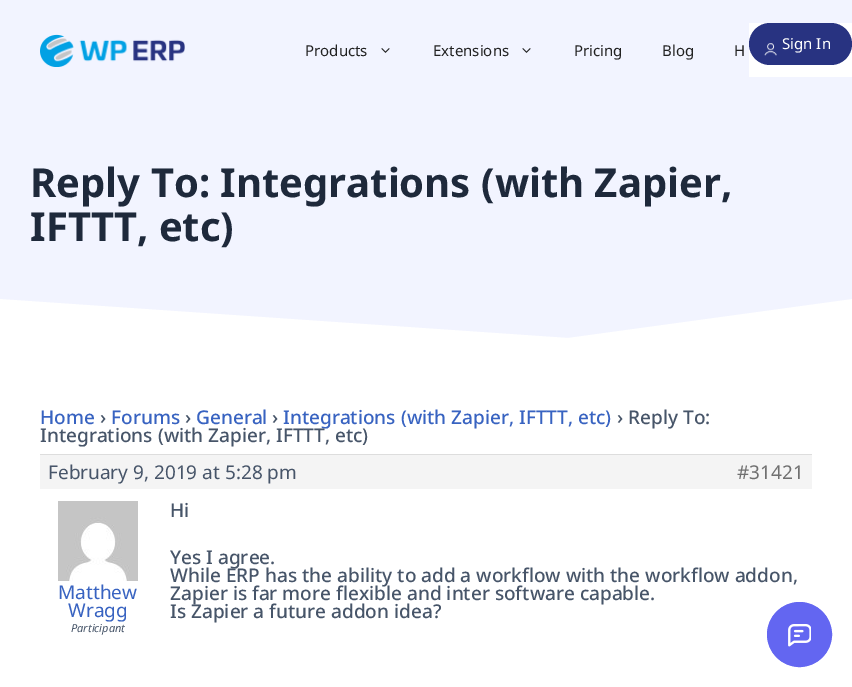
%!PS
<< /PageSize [852 687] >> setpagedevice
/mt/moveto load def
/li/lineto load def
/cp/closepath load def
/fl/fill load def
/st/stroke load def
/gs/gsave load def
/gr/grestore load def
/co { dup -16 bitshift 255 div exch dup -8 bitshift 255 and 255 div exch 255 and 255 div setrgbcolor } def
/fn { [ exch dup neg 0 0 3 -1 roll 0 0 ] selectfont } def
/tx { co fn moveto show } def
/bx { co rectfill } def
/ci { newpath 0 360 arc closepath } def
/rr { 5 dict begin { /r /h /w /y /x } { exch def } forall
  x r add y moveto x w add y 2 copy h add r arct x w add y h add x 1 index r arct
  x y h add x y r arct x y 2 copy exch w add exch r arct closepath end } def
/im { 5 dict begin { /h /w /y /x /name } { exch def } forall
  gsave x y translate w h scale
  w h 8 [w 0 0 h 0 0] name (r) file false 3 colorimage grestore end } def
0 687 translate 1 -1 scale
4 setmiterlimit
0 0 852 687 16#FFFFFF bx
0 0 852 338 16#F2F4FF bx
(media/1.raw) 40 34 145 33 im
(media/2.raw) 381 48 9 5 im
(media/2.raw) 522 48 9 5 im
749 23 103 54 16#FFFFFF bx
16#283381 co
749 23 103 42 21 rr fl
(media/3.raw) 764 43 13 13 im
16#FFFFFF co
-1 349 mt 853 349 li 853 299 li 568 338 li -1 299 li cp fl
40 455 772 34 16#F4F4F4 bx
40 454 772 1 16#DDDDDD bx
(media/4.raw) 58 501 80 80 im
16#6366F1 co
799.5 634.5 32 ci gs fl gr
st
(media/5.raw) 788 624 23 23 im
(Products) 305 56 /NotoSans-Regular 15 16#222222 tx
(Extensions) 433 56 /NotoSans-Regular 15 16#222222 tx
(Pricing) 574 56 /NotoSans-Regular 15 16#222222 tx
(Blog) 662 56 /NotoSans-Regular 15 16#222222 tx
(H) 734 56 /NotoSans-Regular 15 16#222222 tx
(Sign In) 782 49 /NotoSans-Regular 15 16#FFFFFF tx
(Reply To: Integrations \(with Zapier,) 30 197 /NotoSans-Bold 40 16#1E293B tx
(IFTTT, etc\)) 30 241 /NotoSans-Bold 40 16#1E293B tx
(Home) 40 424 /NotoSans-Medium 19 16#3863C1 tx
(›) 100 424 /NotoSans-Medium 19 16#475569 tx
(Forums) 111 424 /NotoSans-Medium 19 16#3863C1 tx
(›) 185 424 /NotoSans-Medium 19 16#475569 tx
(General) 196 424 /NotoSans-Medium 19 16#3863C1 tx
(›) 272 424 /NotoSans-Medium 19 16#475569 tx
(Integrations \(with Zapier, IFTTT, etc\)) 283 424 /NotoSans-Medium 19 16#3863C1 tx
(› Reply To:) 617 424 /NotoSans-Medium 19 16#475569 tx
(Integrations \(with Zapier, IFTTT, etc\)) 40 442 /NotoSans-Medium 19 16#475569 tx
(February 9, 2019 at 5:28 pm) 48 479 /NotoSans-Regular 19 16#475569 tx
(#31421) 737 479 /NotoSans-Regular 19 16#707070 tx
(Matthew) 58 599 /NotoSans-Regular 19 16#3863C1 tx
(Wragg) 68 617 /NotoSans-Regular 19 16#3863C1 tx
(Participant) 71 632 /NotoSans-Italic 11 16#475569 tx
(Hi) 170 517 /NotoSans-Medium 19 16#475569 tx
(Yes I agree.) 170 564 /NotoSans-Medium 19 16#475569 tx
(While ERP has the ability to add a workflow with the workflow addon,) 170 582 /NotoSans-Medium 19 16#475569 tx
(Zapier is far more flexible and inter software capable.) 170 600 /NotoSans-Medium 19 16#475569 tx
(Is Zapier a future addon idea?) 170 618 /NotoSans-Medium 19 16#475569 tx
showpage
